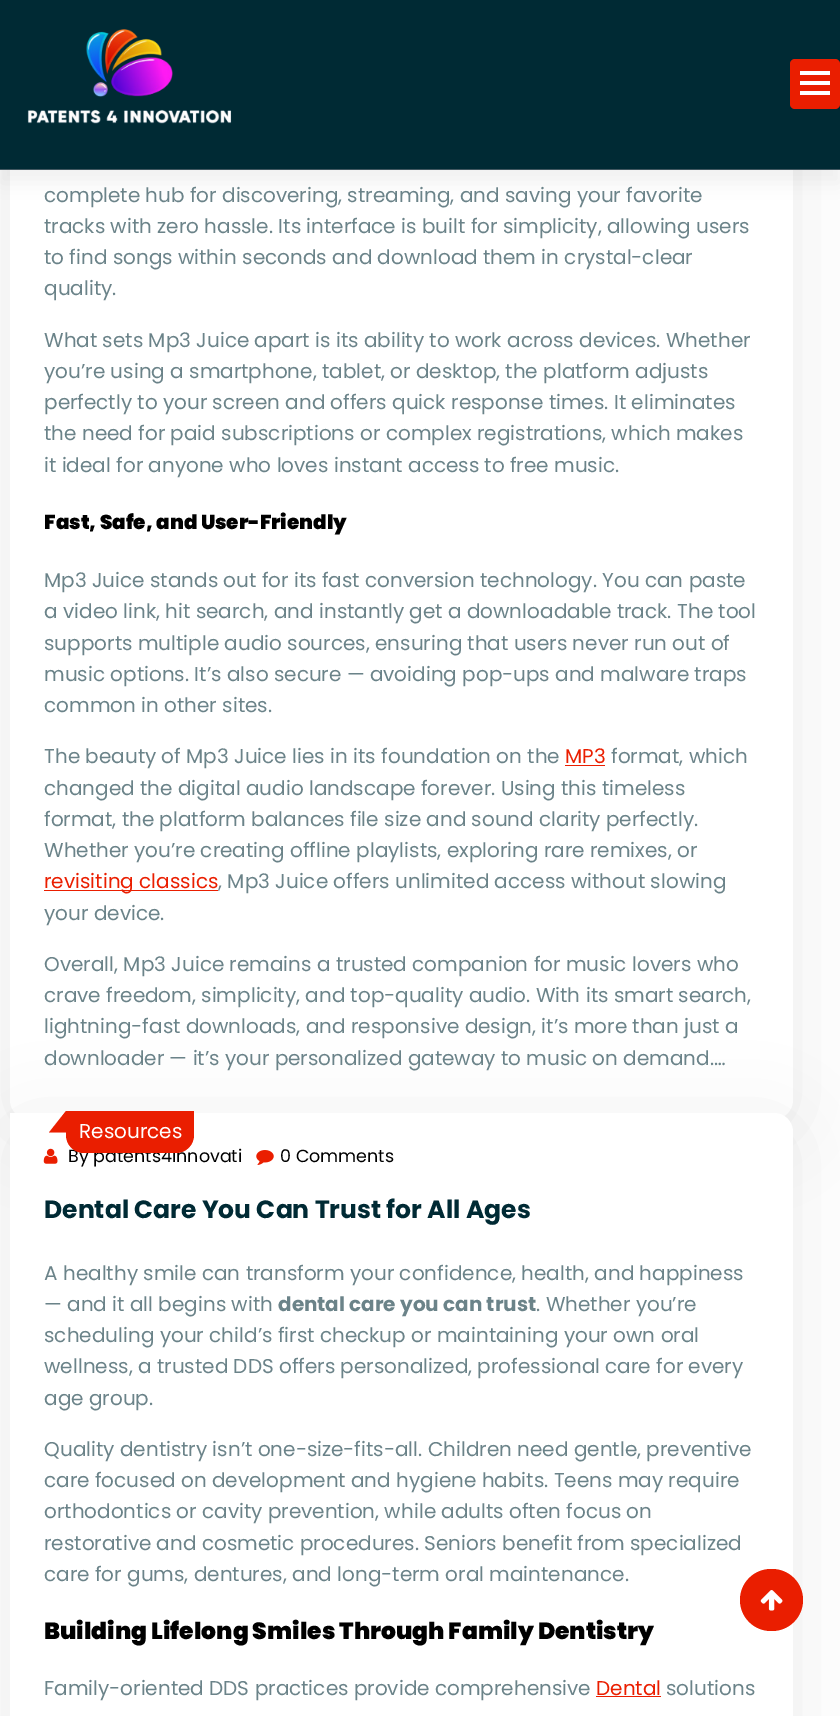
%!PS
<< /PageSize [840 1716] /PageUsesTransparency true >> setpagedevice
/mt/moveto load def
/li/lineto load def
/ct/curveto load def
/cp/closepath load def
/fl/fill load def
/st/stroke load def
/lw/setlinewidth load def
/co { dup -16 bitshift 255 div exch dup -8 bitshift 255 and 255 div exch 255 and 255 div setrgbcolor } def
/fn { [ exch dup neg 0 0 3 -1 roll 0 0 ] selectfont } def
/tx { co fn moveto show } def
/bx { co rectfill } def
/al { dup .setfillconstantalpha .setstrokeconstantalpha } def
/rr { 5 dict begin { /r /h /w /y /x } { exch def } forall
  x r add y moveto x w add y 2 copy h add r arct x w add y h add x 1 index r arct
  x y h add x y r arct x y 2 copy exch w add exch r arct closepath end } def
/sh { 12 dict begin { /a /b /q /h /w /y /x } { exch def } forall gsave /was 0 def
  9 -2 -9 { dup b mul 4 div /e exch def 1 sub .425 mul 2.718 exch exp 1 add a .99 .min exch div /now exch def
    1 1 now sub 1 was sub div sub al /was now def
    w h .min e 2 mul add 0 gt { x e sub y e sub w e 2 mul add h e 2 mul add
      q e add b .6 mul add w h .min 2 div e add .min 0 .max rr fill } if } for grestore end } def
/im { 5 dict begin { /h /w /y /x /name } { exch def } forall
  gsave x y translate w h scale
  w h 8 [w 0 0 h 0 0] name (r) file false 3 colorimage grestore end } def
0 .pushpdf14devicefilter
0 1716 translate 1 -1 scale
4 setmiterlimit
0 0 840 1716 16#FFFFFF bx
16#000000 co
10 -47 783 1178 19 37.5 .07 sh
16#FFFFFF co
10 -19 mt 774 -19 li 784.5 -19 793 -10.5 793 0 ct 793 1100 li 793 1110.5 784.5 1119 774 1119 ct 29 1119 li 18.5 1119 10 1110.5 10 1100 ct cp fl
16#000000 co
0 11 840 172 0 9.5 .05 sh
0 0 840 169 16#002A34 bx
0 169 840 1 16#415760 bx
(media/1.raw) 27 29 205 95 im
16#EA1E00 co
790 59 50 50 5 rr fl
0.08 al
3 lw
791.5 60.5 47 47 3.5 rr st
1 al
800 71 30 4 16#FFFFFF bx
800 81 30 4 16#FFFFFF bx
800 91 30 4 16#FFFFFF bx
565 765 40 1 16#EA1E00 bx
44 890 174 1 16#EA1E00 bx
16#000000 co
10 1125 783 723 19 37.5 .07 sh
16#FFFFFF co
10 1113 mt 774 1113 li 784.5 1113 793 1121.5 793 1132 ct 793 1716 li 793 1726.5 784.5 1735 774 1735 ct 29 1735 li 18.5 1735 10 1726.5 10 1716 ct cp fl
16#EA1E00 co
66 1111 mt 66 1132.5 li 49 1132.5 li cp fl
(media/2.raw) 43 1148 15 16 im
(media/3.raw) 256 1150 18 15 im
596 1696 65 1 16#EA1E00 bx
740 1569 63 62 31 rr fl
(media/4.raw) 760 1590 23 21 im
(complete hub for discovering, streaming, and saving your favorite) 44 202 /Poppins-Regular 20 16#6B8389 tx
(tracks with zero hassle. Its interface is built for simplicity, allowing users) 44 233 /Poppins-Regular 20 16#6B8389 tx
(to find songs within seconds and download them in crystal-clear) 44 264 /Poppins-Regular 20 16#6B8389 tx
(quality.) 44 295 /Poppins-Regular 20 16#6B8389 tx
(What sets Mp3 Juice apart is its ability to work across devices. Whether) 44 347 /Poppins-Regular 20 16#6B8389 tx
(you’re using a smartphone, tablet, or desktop, the platform adjusts) 44 378 /Poppins-Regular 20 16#6B8389 tx
(perfectly to your screen and offers quick response times. It eliminates) 44 409 /Poppins-Regular 20 16#6B8389 tx
(the need for paid subscriptions or complex registrations, which makes) 44 440 /Poppins-Regular 20 16#6B8389 tx
(it ideal for anyone who loves instant access to free music.) 44 472 /Poppins-Regular 20 16#6B8389 tx
(Fast, Safe, and User-Friendly) 44 529 /Poppins-Black 20 16#000000 tx
(Mp3 Juice stands out for its fast conversion technology. You can paste) 44 587 /Poppins-Regular 20 16#6B8389 tx
(a video link, hit search, and instantly get a downloadable track. The tool) 44 618 /Poppins-Regular 20 16#6B8389 tx
(supports multiple audio sources, ensuring that users never run out of) 44 650 /Poppins-Regular 20 16#6B8389 tx
(music options. It’s also secure — avoiding pop-ups and malware traps) 44 681 /Poppins-Regular 20 16#6B8389 tx
(common in other sites.) 44 712 /Poppins-Regular 20 16#6B8389 tx
(The beauty of Mp3 Juice lies in its foundation on the) 44 763 /Poppins-Regular 20 16#6B8389 tx
(MP3) 565 763 /Poppins-Regular 20 16#EA1E00 tx
(format, which) 611 763 /Poppins-Regular 20 16#6B8389 tx
(changed the digital audio landscape forever. Using this timeless) 44 795 /Poppins-Regular 20 16#6B8389 tx
(format, the platform balances file size and sound clarity perfectly.) 44 826 /Poppins-Regular 20 16#6B8389 tx
(Whether you’re creating offline playlists, exploring rare remixes, or) 44 857 /Poppins-Regular 20 16#6B8389 tx
(revisiting classics) 44 888 /Poppins-Regular 20 16#EA1E00 tx
(, Mp3 Juice offers unlimited access without slowing) 218 888 /Poppins-Regular 20 16#6B8389 tx
(your device.) 44 920 /Poppins-Regular 20 16#6B8389 tx
(Overall, Mp3 Juice remains a trusted companion for music lovers who) 44 971 /Poppins-Regular 20 16#6B8389 tx
(crave freedom, simplicity, and top-quality audio. With its smart search,) 44 1002 /Poppins-Regular 20 16#6B8389 tx
(lightning-fast downloads, and responsive design, it’s more than just a) 44 1033 /Poppins-Regular 20 16#6B8389 tx
(downloader — it’s your personalized gateway to music on demand.…) 44 1065 /Poppins-Regular 20 16#6B8389 tx
(By patents4innovati) 68 1162 /Poppins-Regular 17.5 16#000000 tx
16#EA1E00 co
66 1111 mt 194 1111 li 194 1135 li 194 1145 186 1153 176 1153 ct 84 1153 li 74 1153 66 1145 66 1135 ct cp fl
(Resources) 79 1138 /Poppins-Regular 20 16#FFFFFF tx
(0 Comments) 280 1162 /Poppins-Regular 17.5 16#000000 tx
(Dental Care You Can Trust for All Ages) 44 1218 /Poppins-Bold 25 16#002A34 tx
(A healthy smile can transform your confidence, health, and happiness) 44 1280 /Poppins-Regular 20 16#6B8389 tx
(— and it all begins with) 44 1311 /Poppins-Regular 20 16#6B8389 tx
(dental care you can trust) 278 1311 /Poppins-Bold 20 16#6B8389 tx
(. Whether you’re) 536 1311 /Poppins-Regular 20 16#6B8389 tx
(scheduling your child’s first checkup or maintaining your own oral) 44 1342 /Poppins-Regular 20 16#6B8389 tx
(wellness, a trusted DDS offers personalized, professional care for every) 44 1373 /Poppins-Regular 20 16#6B8389 tx
(age group.) 44 1405 /Poppins-Regular 20 16#6B8389 tx
(Quality dentistry isn’t one-size-fits-all. Children need gentle, preventive) 44 1456 /Poppins-Regular 20 16#6B8389 tx
(care focused on development and hygiene habits. Teens may require) 44 1487 /Poppins-Regular 20 16#6B8389 tx
(orthodontics or cavity prevention, while adults often focus on) 44 1518 /Poppins-Regular 20 16#6B8389 tx
(restorative and cosmetic procedures. Seniors benefit from specialized) 44 1550 /Poppins-Regular 20 16#6B8389 tx
(care for gums, dentures, and long-term oral maintenance.) 44 1581 /Poppins-Regular 20 16#6B8389 tx
(Building Lifelong Smiles Through Family Dentistry) 44 1639 /Poppins-Black 23.4 16#000000 tx
(Family-oriented DDS practices provide comprehensive) 44 1695 /Poppins-Regular 20 16#6B8389 tx
(Dental) 596 1695 /Poppins-Regular 20 16#EA1E00 tx
(solutions) 666 1695 /Poppins-Regular 20 16#6B8389 tx
.poppdf14devicefilter showpage
